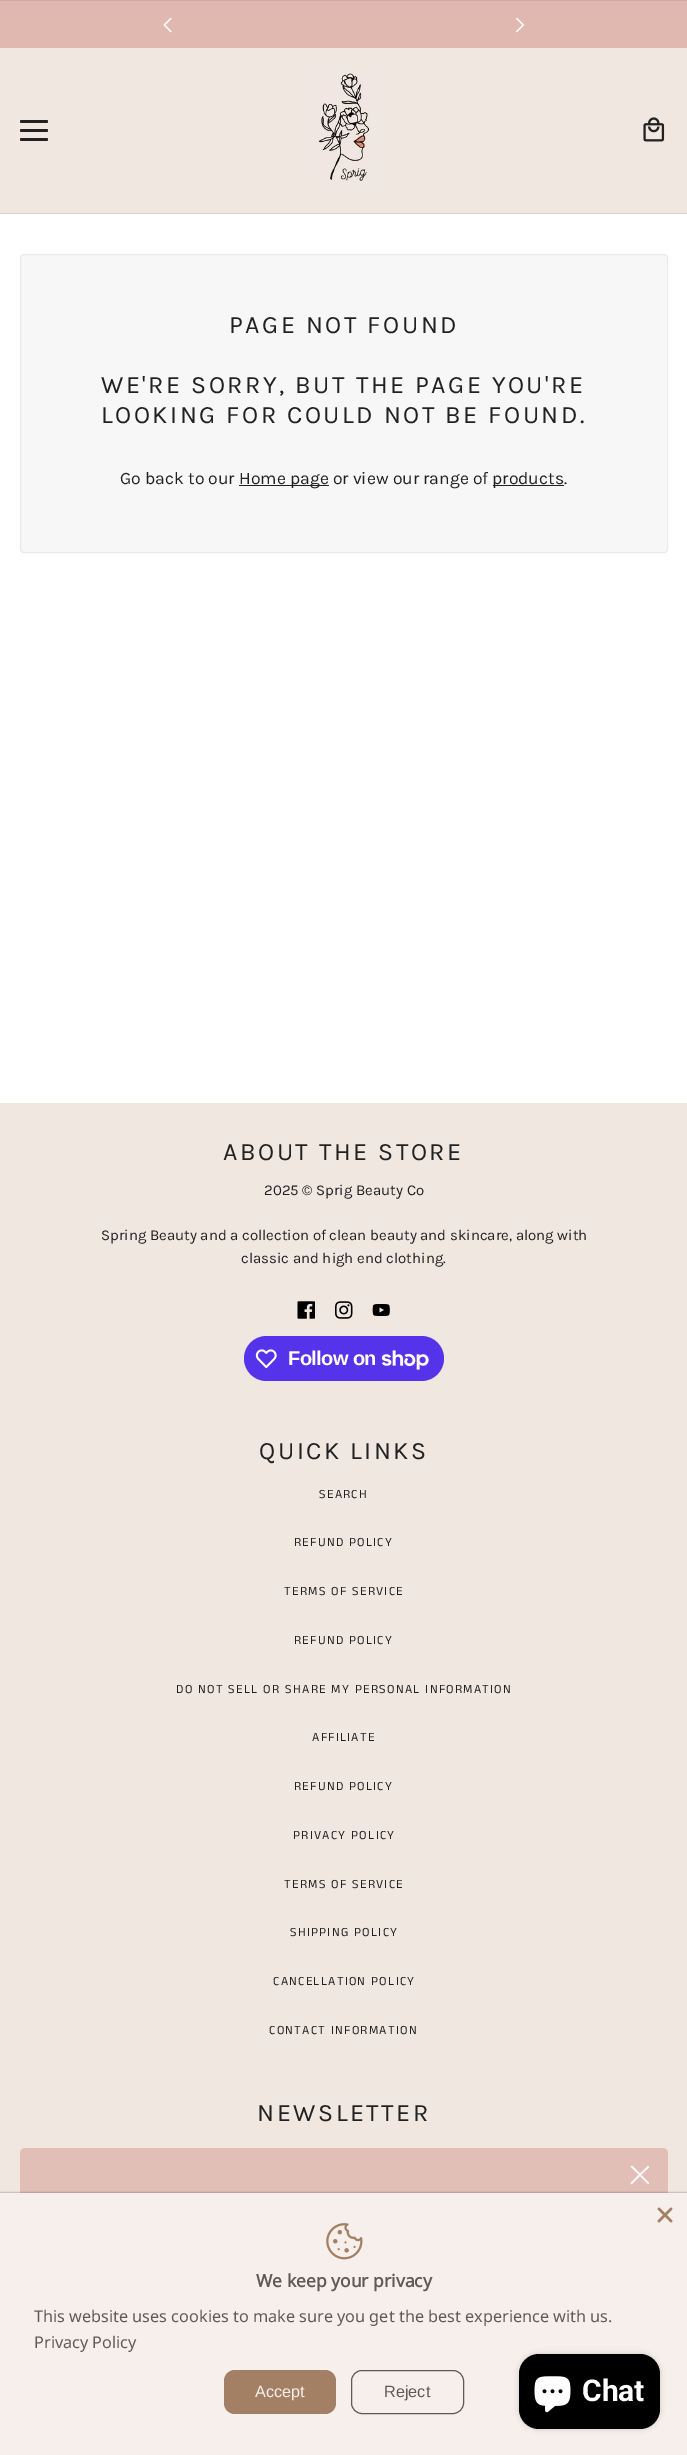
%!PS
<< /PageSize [687 2455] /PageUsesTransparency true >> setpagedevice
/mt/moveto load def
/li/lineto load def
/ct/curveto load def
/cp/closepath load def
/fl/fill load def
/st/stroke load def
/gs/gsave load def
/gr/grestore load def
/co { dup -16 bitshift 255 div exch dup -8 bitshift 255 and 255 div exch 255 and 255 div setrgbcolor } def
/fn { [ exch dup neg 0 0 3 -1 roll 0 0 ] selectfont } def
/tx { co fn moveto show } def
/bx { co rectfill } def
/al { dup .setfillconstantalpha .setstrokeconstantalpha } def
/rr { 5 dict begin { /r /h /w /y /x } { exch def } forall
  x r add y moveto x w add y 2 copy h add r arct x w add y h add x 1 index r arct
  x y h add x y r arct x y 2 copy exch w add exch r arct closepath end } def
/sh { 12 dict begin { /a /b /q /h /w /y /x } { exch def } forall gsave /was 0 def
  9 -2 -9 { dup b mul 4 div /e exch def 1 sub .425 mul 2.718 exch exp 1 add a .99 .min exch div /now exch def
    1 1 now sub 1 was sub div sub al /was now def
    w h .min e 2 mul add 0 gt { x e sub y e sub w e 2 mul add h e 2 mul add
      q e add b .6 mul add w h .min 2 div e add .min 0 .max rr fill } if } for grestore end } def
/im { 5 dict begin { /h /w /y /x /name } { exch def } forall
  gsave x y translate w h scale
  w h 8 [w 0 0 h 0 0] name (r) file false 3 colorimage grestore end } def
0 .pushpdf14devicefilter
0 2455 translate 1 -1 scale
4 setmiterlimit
0 0 687 2455 16#FFFFFF bx
0 1 687 47 16#E0B8AF bx
0 0 687 1 16#CDA9A1 bx
(media/1.raw) 163 18 9 15 im
(media/2.raw) 515 18 9 15 im
0 48 687 165 16#F0E7E0 bx
0 213 687 1 16#DBD3CD bx
16#212121 co
20 120 28 3 1.5 rr fl
20 129 28 3 1.5 rr fl
20 138 28 3 1.5 rr fl
(media/3.raw) 318 72 53 109 im
(media/4.raw) 643 117 22 25 im
16#F7F7F7 co
20.5 254.5 647 298 3.5 rr gs fl gr
16#EAEAEA co
st
239 485 90 1 16#212121 bx
493 485 71 1 16#212121 bx
0 1103 687 1090 16#F0E7E0 bx
(media/5.raw) 297 1301 18 18 im
(media/6.raw) 335 1301 18 18 im
(media/7.raw) 372 1304 18 12 im
16#5433EB co
244 1336 200 45 22.5 rr fl
(media/8.raw) 255 1349 22 20 im
(media/9.raw) 381 1350 48 20 im
0.85 al
16#E0B8AF co
20 2148 648 287 5 rr fl
1 al
16#FFFFFF co
632.5 2166 mt 649 2183 li 649 2183.5 li 648 2185 646.5 2182.5 645 2181 ct 631 2167 li 630.5 2166.5 632 2165.5 632.5 2166 ct cp fl
631 2182.5 mt 648 2166 li 648.5 2166 li 650 2167 647.5 2168.5 646 2170 ct 632 2184 li 631.5 2184.5 630.5 2183 631 2182.5 ct cp fl
16#000000 co
0 2193 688 262 0 1 .5 sh
0 2193 687 262 16#F6EFEB bx
(media/10.raw) 657 2207 16 16 im
(media/11.raw) 326 2223 37 37 im
16#A38064 co
224 2370 112 44 11 rr fl
16#5F5A56 co
351.5 2370.5 112 43 10.5 rr st
16#000000 co
519 2354 141 75 20 3 .15 sh
519 2354 141 75 20 rr fl
(media/12.raw) 534 2376 37 37 im
/Karla-Regular 25 fn
16#212121 co
229 333 mt 2.5 0 (PAGE NOT FOUND) ashow
101 393 mt 2.5 0 (WE'RE SORRY, BUT THE PAGE YOU'RE) ashow
101 423 mt 2.5 0 (LOOKING FOR COULD NOT BE FOUND.) ashow
(Go back to our) 120 484 /Karla-Regular 17.5 16#212121 tx
(Home page or view our range of) 239 484 /Karla-Regular 17.5 16#212121 tx
(products.) 492 484 /Karla-Regular 17.5 16#212121 tx
/Karla-Regular 25 fn
223 1160 mt 2.5 0 (ABOUT THE STORE) ashow
(2025 © Sprig Beauty Co) 264 1195 /Karla-Regular 15 16#212121 tx
(Spring Beauty and a collection of clean beauty and skincare, along with) 101 1240 /Karla-Regular 15 16#212121 tx
(classic and high end clothing.) 241 1263 /Karla-Regular 15 16#212121 tx
/LiberationSans-Bold 20 fn
16#FFFFFF co
288 1365 mt -.6 0 (Follow on) ashow
/Karla-Regular 25 fn
16#212121 co
259 1459 mt 2.5 0 (QUICK LINKS) ashow
/AnekTamil-Regular 12.5 fn
319 1498 mt 1.25 0 (SEARCH) ashow
294 1546 mt 1.25 0 (REFUND POLICY) ashow
284 1595 mt 1.25 0 (TERMS OF SERVICE) ashow
294 1644 mt 1.25 0 (REFUND POLICY) ashow
176 1693 mt 1.25 0 (DO NOT SELL OR SHARE MY PERSONAL INFORMATION) ashow
312 1741 mt 1.25 0 (AFFILIATE) ashow
294 1790 mt 1.25 0 (REFUND POLICY) ashow
293 1839 mt 1.25 0 (PRIVACY POLICY) ashow
284 1888 mt 1.25 0 (TERMS OF SERVICE) ashow
290 1936 mt 1.25 0 (SHIPPING POLICY) ashow
273 1985 mt 1.25 0 (CANCELLATION POLICY) ashow
269 2034 mt 1.25 0 (CONTACT INFORMATION) ashow
/Karla-Regular 25 fn
257 2121 mt 2.5 0 (NEWSLETTER) ashow
(We keep your privacy) 256 2287 /NotoSans-Bold 17.5 16#5F5A56 tx
(This website uses cookies to make sure you get the best experience with us.) 34 2322 /NotoSans-Regular 16.25 16#5F5A56 tx
(Privacy Policy) 34 2348 /NotoSans-Regular 16.25 16#5F5A56 tx
(Accept) 255 2397 /LiberationSans-Regular 16.25 16#F6EFEB tx
(Reject) 384 2397 /LiberationSans-Regular 16.25 16#5F5A56 tx
(Chat) 582 2401 /Roboto-Bold 30 16#FFFFFF tx
.poppdf14devicefilter showpage
